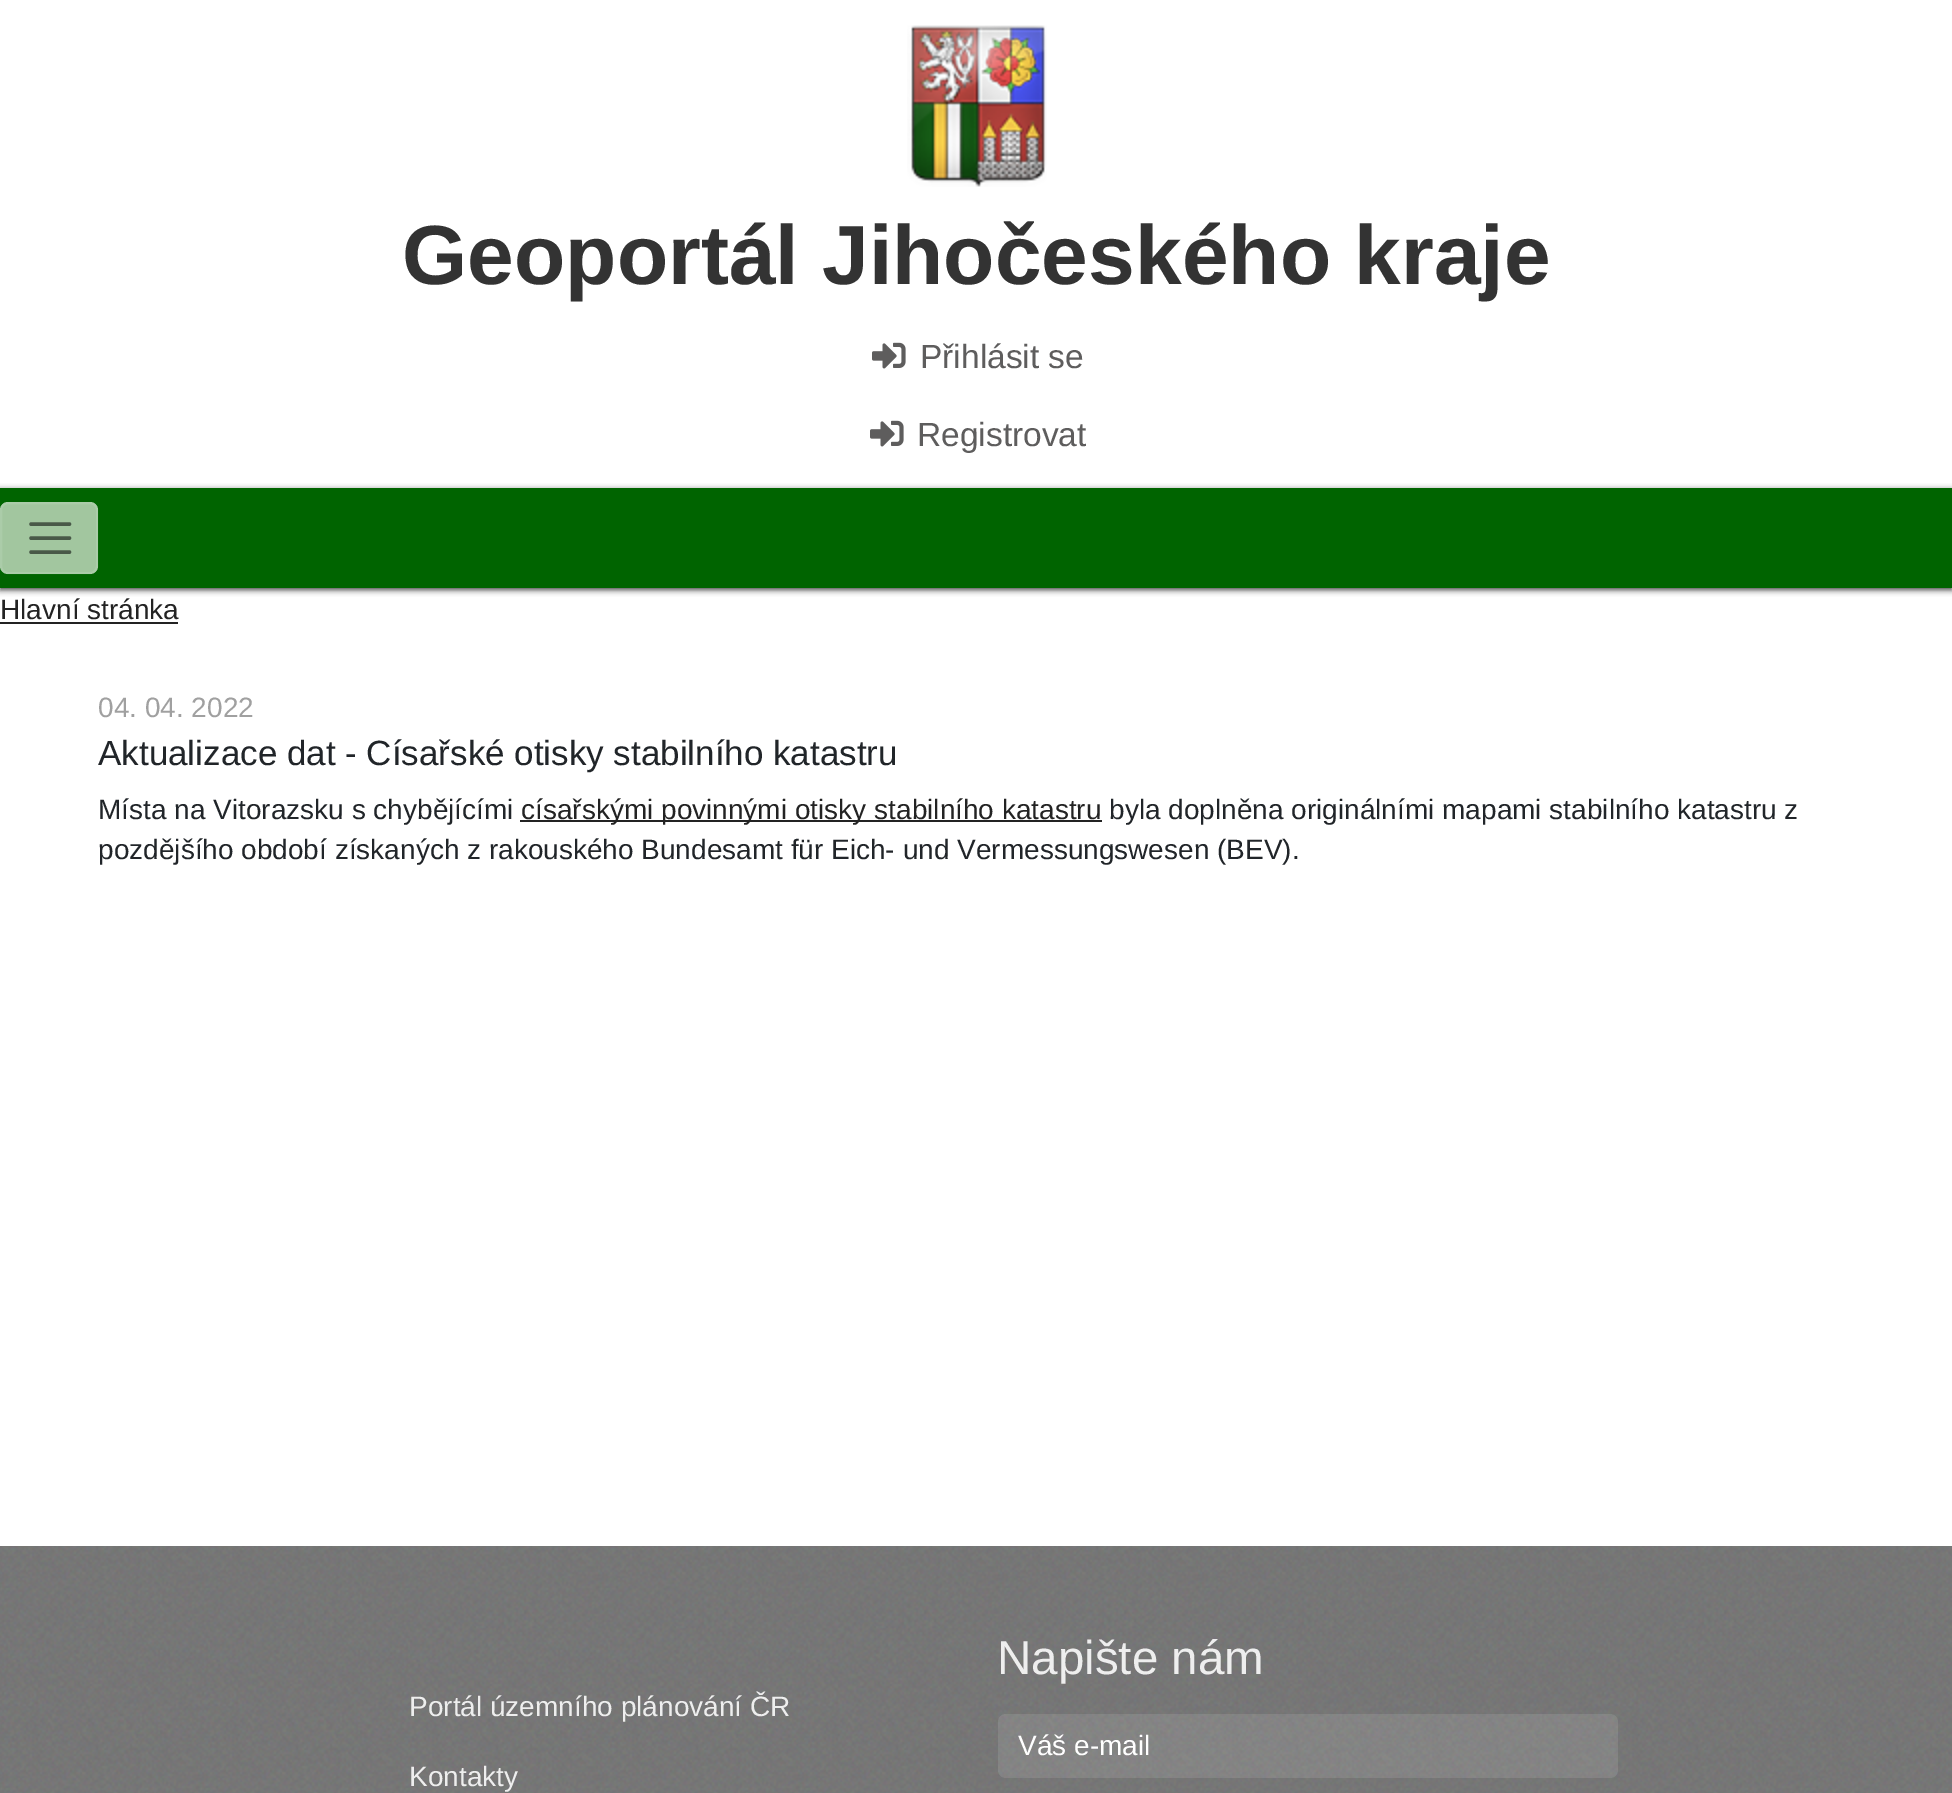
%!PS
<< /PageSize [1952 1793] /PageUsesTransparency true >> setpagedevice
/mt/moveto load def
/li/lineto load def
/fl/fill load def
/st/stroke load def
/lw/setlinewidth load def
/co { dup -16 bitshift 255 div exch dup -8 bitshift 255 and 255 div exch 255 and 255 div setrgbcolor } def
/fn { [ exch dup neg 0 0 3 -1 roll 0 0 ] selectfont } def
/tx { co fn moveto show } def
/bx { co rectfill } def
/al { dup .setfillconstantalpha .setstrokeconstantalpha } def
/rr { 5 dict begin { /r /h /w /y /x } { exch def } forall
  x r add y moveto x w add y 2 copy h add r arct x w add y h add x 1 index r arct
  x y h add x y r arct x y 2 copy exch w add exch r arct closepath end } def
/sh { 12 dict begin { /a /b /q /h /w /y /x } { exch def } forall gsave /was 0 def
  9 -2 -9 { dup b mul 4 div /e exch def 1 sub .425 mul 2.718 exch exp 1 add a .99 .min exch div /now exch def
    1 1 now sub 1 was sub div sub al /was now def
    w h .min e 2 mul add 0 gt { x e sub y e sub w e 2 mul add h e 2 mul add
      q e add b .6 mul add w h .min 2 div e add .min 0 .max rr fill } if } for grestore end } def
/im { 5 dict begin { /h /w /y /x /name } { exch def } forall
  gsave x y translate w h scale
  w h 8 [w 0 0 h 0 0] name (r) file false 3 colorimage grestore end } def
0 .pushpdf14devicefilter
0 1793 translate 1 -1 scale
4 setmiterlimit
0 0 1952 1793 16#FFFFFF bx
(media/1.raw) 907 25 140 162 im
(media/2.raw) 872 342 34 27 im
(media/2.raw) 870 420 34 27 im
16#000000 co
0 490 1952 100 0 3 .75 sh
0 488 1952 100 16#006400 bx
16#A2C69F co
0 502 98 72 8 rr fl
0.1 al
16#FFFFFF co
2 lw
1 503 96 70 7 rr st
1 al
16#495948 co
3.5 lw
1 setlinecap
31 524 mt 69.5 524 li 31 538 mt 69.5 538 li 31 552 mt 69.5 552 li st
0 622 178 2 16#232323 bx
520 820 582 2 16#232323 bx
(media/3.raw) 0 1546 1952 247 im
0.1 al
16#FFFFFF co
998 1714 620 64 8 rr fl
1 al
(Geoportál Jihočeského kraje) 402 284 /LiberationSans-Bold 84 16#333333 tx
(Přihlásit se) 920 368 /LiberationSans-Regular 33.5 16#5E5D5D tx
(Registrovat) 917 446 /LiberationSans-Regular 33.5 16#5E5D5D tx
(Hlavní stránka) 0 619 /LiberationSans-Regular 28 16#232323 tx
(04. 04. 2022) 98 717 /LiberationSans-Regular 28 16#A0A0A0 tx
(Aktualizace dat - Císařské otisky stabilního katastru) 98 765 /LiberationSans-Regular 35 16#212529 tx
(Místa na Vitorazsku s chybějícími) 98 819 /LiberationSans-Regular 28 16#212529 tx
(císařskými povinnými otisky stabilního katastru) 521 819 /LiberationSans-Regular 28 16#232323 tx
(byla doplněna originálními mapami stabilního katastru z) 1109 819 /LiberationSans-Regular 28 16#212529 tx
(pozdějšího období získaných z rakouského Bundesamt für Eich- und Vermessungswesen \(BEV\).) 98 859 /LiberationSans-Regular 28 16#212529 tx
(Portál územního plánování ČR) 409 1716 /LiberationSans-Regular 28 16#EEEEEE tx
(Kontakty) 409 1786 /LiberationSans-Regular 28 16#EEEEEE tx
(Napište nám) 997 1674 /LiberationSans-Regular 47.5 16#EEEEEE tx
(Váš e-mail) 1018 1755 /LiberationSans-Regular 28 16#FFFFFF tx
.poppdf14devicefilter showpage
